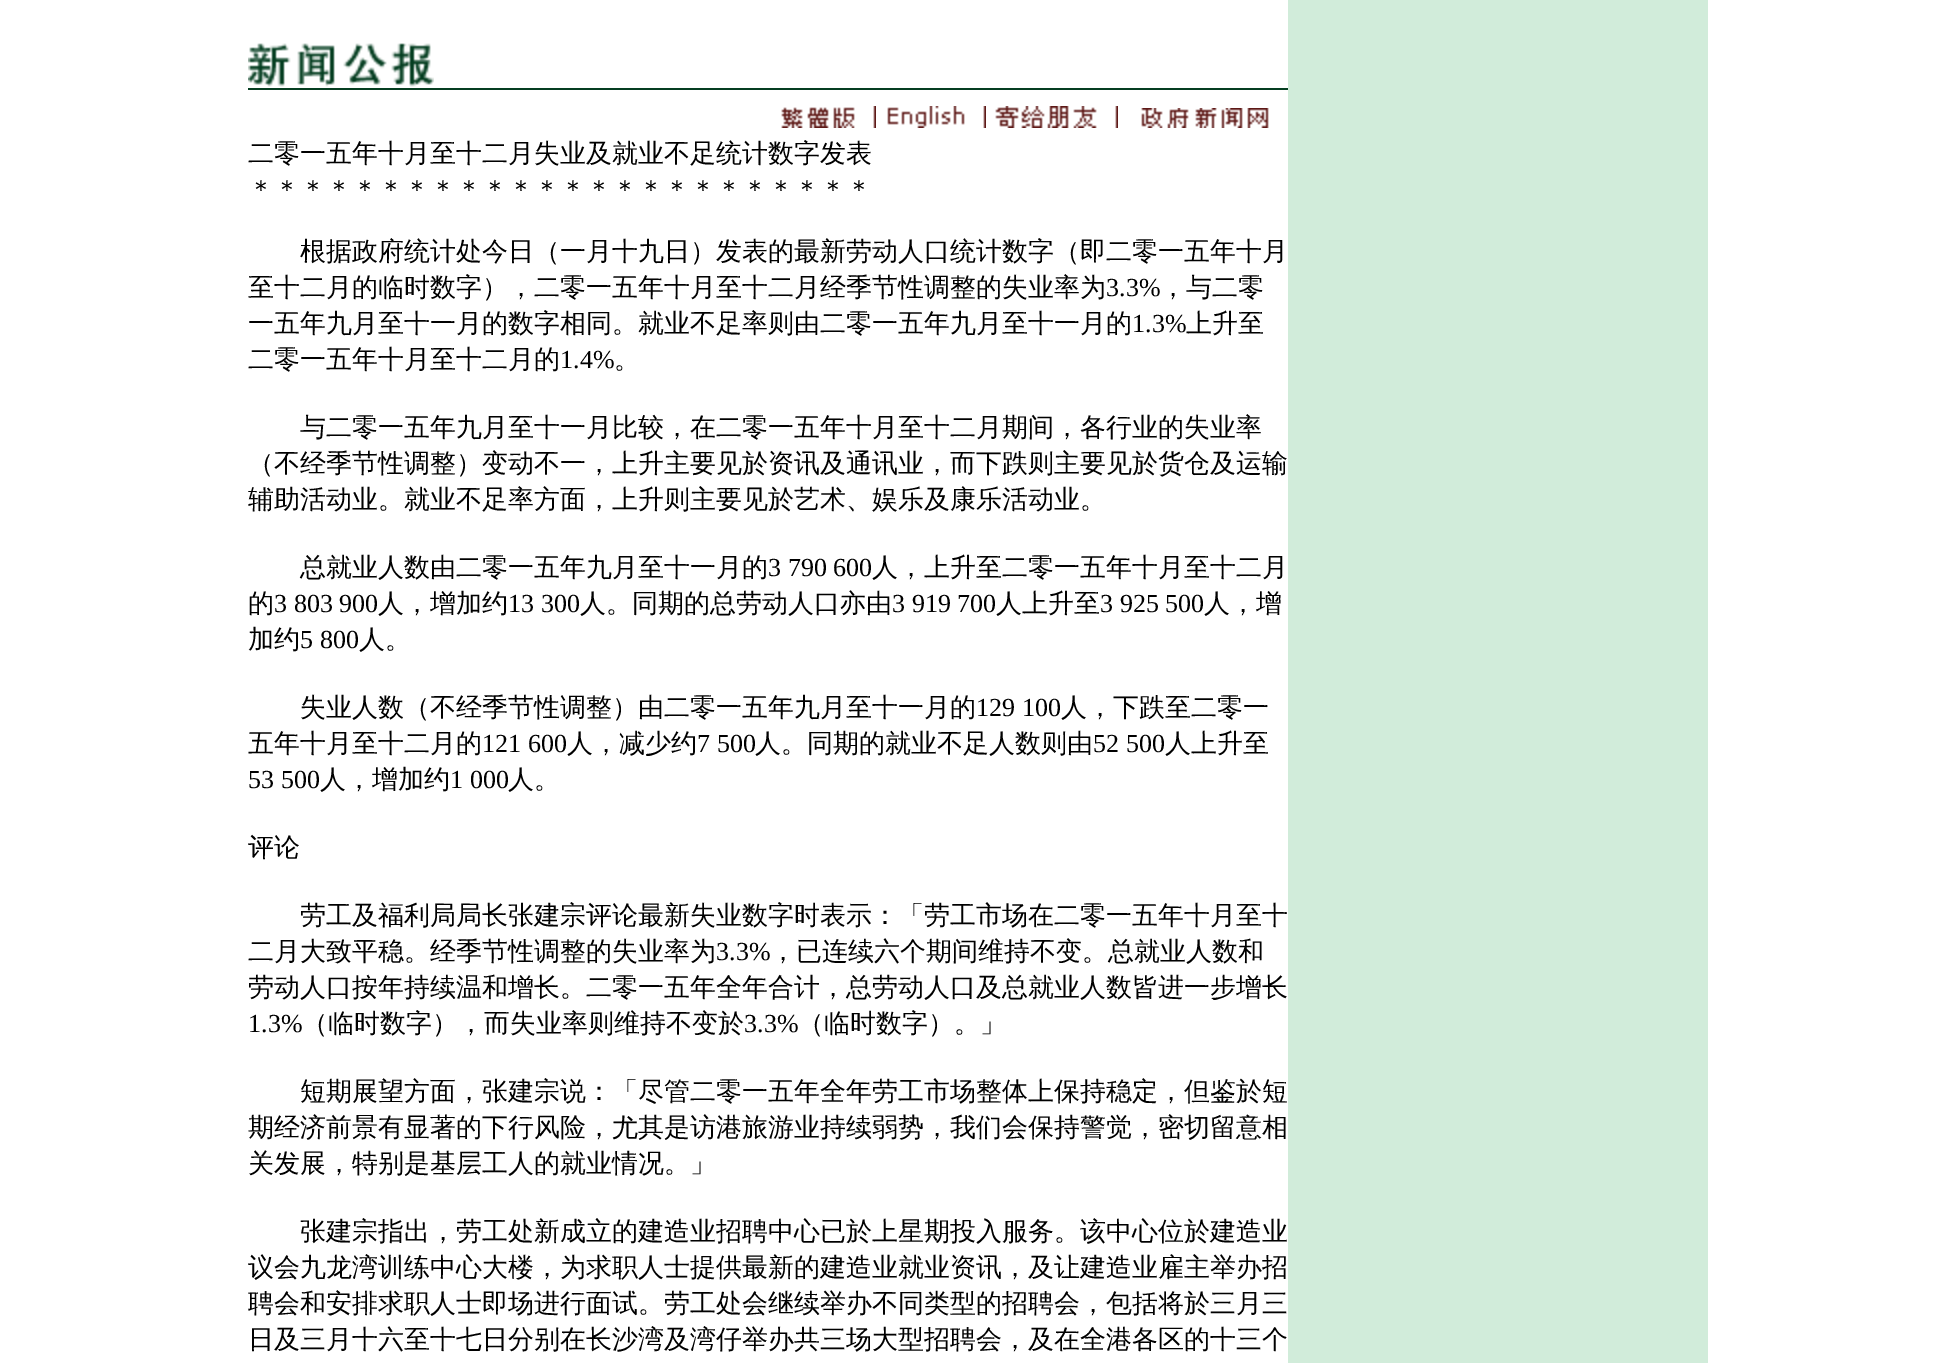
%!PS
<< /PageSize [1956 1363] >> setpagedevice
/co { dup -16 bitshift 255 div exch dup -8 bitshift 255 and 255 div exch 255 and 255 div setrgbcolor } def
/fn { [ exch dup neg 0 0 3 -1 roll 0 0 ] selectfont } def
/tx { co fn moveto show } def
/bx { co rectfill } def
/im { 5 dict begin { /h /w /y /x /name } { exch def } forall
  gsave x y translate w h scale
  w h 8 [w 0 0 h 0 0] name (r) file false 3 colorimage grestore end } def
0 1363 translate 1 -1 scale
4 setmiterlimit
0 0 1956 1363 16#FFFFFF bx
1288 0 420 1363 16#D1ECDA bx
248 88 1040 2 16#053E21 bx
(media/1.raw) 248 43 186 44 im
(media/2.raw) 781 106 95 22 im
(media/3.raw) 887 106 99 22 im
(media/4.raw) 995 106 123 22 im
(media/5.raw) 1141 108 128 20 im
(二零一五年十月至十二月失业及就业不足统计数字发表) 248 162 /WenQuanYiZenHei-Medium 26 16#000000 tx
(＊＊＊＊＊＊＊＊＊＊＊＊＊＊＊＊＊＊＊＊＊＊＊＊) 248 198 /WenQuanYiZenHei-Medium 26 16#000000 tx
(根据政府统计处今日（一月十九日）发表的最新劳动人口统计数字（即二零一五年十月) 300 260 /WenQuanYiZenHei-Medium 26 16#000000 tx
(至十二月的临时数字），二零一五年十月至十二月经季节性调整的失业率为) 248 296 /WenQuanYiZenHei-Medium 26 16#000000 tx
(3.3%) 1106 296 /LiberationSerif-Regular 26 16#000000 tx
(，与二零) 1160 296 /WenQuanYiZenHei-Medium 26 16#000000 tx
(一五年九月至十一月的数字相同。就业不足率则由二零一五年九月至十一月的) 248 332 /WenQuanYiZenHei-Medium 26 16#000000 tx
(1.3%) 1132 332 /LiberationSerif-Regular 26 16#000000 tx
(上升至) 1186 332 /WenQuanYiZenHei-Medium 26 16#000000 tx
(二零一五年十月至十二月的) 248 368 /WenQuanYiZenHei-Medium 26 16#000000 tx
(1.4%) 560 368 /LiberationSerif-Regular 26 16#000000 tx
(。) 614 368 /WenQuanYiZenHei-Medium 26 16#000000 tx
(与二零一五年九月至十一月比较，在二零一五年十月至十二月期间，各行业的失业率) 300 436 /WenQuanYiZenHei-Medium 26 16#000000 tx
(（不经季节性调整）变动不一，上升主要见於资讯及通讯业，而下跌则主要见於货仓及运输) 248 472 /WenQuanYiZenHei-Medium 26 16#000000 tx
(辅助活动业。就业不足率方面，上升则主要见於艺术、娱乐及康乐活动业。) 248 508 /WenQuanYiZenHei-Medium 26 16#000000 tx
(总就业人数由二零一五年九月至十一月的) 300 576 /WenQuanYiZenHei-Medium 26 16#000000 tx
(3 790 600) 768 576 /LiberationSerif-Regular 26 16#000000 tx
(人，上升至二零一五年十月至十二月) 872 576 /WenQuanYiZenHei-Medium 26 16#000000 tx
(的) 248 612 /WenQuanYiZenHei-Medium 26 16#000000 tx
(3 803 900) 274 612 /LiberationSerif-Regular 26 16#000000 tx
(人，增加约) 378 612 /WenQuanYiZenHei-Medium 26 16#000000 tx
(13 300) 508 612 /LiberationSerif-Regular 26 16#000000 tx
(人。同期的总劳动人口亦由) 580 612 /WenQuanYiZenHei-Medium 26 16#000000 tx
(3 919 700) 892 612 /LiberationSerif-Regular 26 16#000000 tx
(人上升至) 996 612 /WenQuanYiZenHei-Medium 26 16#000000 tx
(3 925 500) 1100 612 /LiberationSerif-Regular 26 16#000000 tx
(人，增) 1204 612 /WenQuanYiZenHei-Medium 26 16#000000 tx
(加约) 248 648 /WenQuanYiZenHei-Medium 26 16#000000 tx
(5 800) 300 648 /LiberationSerif-Regular 26 16#000000 tx
(人。) 359 648 /WenQuanYiZenHei-Medium 26 16#000000 tx
(失业人数（不经季节性调整）由二零一五年九月至十一月的) 300 716 /WenQuanYiZenHei-Medium 26 16#000000 tx
(129 100) 976 716 /LiberationSerif-Regular 26 16#000000 tx
(人，下跌至二零一) 1061 716 /WenQuanYiZenHei-Medium 26 16#000000 tx
(五年十月至十二月的) 248 752 /WenQuanYiZenHei-Medium 26 16#000000 tx
(121 600) 482 752 /LiberationSerif-Regular 26 16#000000 tx
(人，减少约) 567 752 /WenQuanYiZenHei-Medium 26 16#000000 tx
(7 500) 697 752 /LiberationSerif-Regular 26 16#000000 tx
(人。同期的就业不足人数则由) 755 752 /WenQuanYiZenHei-Medium 26 16#000000 tx
(52 500) 1093 752 /LiberationSerif-Regular 26 16#000000 tx
(人上升至) 1165 752 /WenQuanYiZenHei-Medium 26 16#000000 tx
(53 500) 248 788 /LiberationSerif-Regular 26 16#000000 tx
(人，增加约) 320 788 /WenQuanYiZenHei-Medium 26 16#000000 tx
(1 000) 450 788 /LiberationSerif-Regular 26 16#000000 tx
(人。) 508 788 /WenQuanYiZenHei-Medium 26 16#000000 tx
(评论) 248 856 /WenQuanYiZenHei-Medium 26 16#000000 tx
(劳工及福利局局长张建宗评论最新失业数字时表示：「劳工市场在二零一五年十月至十) 300 924 /WenQuanYiZenHei-Medium 26 16#000000 tx
(二月大致平稳。经季节性调整的失业率为) 248 960 /WenQuanYiZenHei-Medium 26 16#000000 tx
(3.3%) 716 960 /LiberationSerif-Regular 26 16#000000 tx
(，已连续六个期间维持不变。总就业人数和) 770 960 /WenQuanYiZenHei-Medium 26 16#000000 tx
(劳动人口按年持续温和增长。二零一五年全年合计，总劳动人口及总就业人数皆进一步增长) 248 996 /WenQuanYiZenHei-Medium 26 16#000000 tx
(1.3%) 248 1032 /LiberationSerif-Regular 26 16#000000 tx
(（临时数字），而失业率则维持不变於) 302 1032 /WenQuanYiZenHei-Medium 26 16#000000 tx
(3.3%) 744 1032 /LiberationSerif-Regular 26 16#000000 tx
(（临时数字）。」) 798 1032 /WenQuanYiZenHei-Medium 26 16#000000 tx
(短期展望方面，张建宗说：「尽管二零一五年全年劳工市场整体上保持稳定，但鉴於短) 300 1100 /WenQuanYiZenHei-Medium 26 16#000000 tx
(期经济前景有显著的下行风险，尤其是访港旅游业持续弱势，我们会保持警觉，密切留意相) 248 1136 /WenQuanYiZenHei-Medium 26 16#000000 tx
(关发展，特别是基层工人的就业情况。」) 248 1172 /WenQuanYiZenHei-Medium 26 16#000000 tx
(张建宗指出，劳工处新成立的建造业招聘中心已於上星期投入服务。该中心位於建造业) 300 1240 /WenQuanYiZenHei-Medium 26 16#000000 tx
(议会九龙湾训练中心大楼，为求职人士提供最新的建造业就业资讯，及让建造业雇主举办招) 248 1276 /WenQuanYiZenHei-Medium 26 16#000000 tx
(聘会和安排求职人士即场进行面试。劳工处会继续举办不同类型的招聘会，包括将於三月三) 248 1312 /WenQuanYiZenHei-Medium 26 16#000000 tx
(日及三月十六至十七日分别在长沙湾及湾仔举办共三场大型招聘会，及在全港各区的十三个) 248 1348 /WenQuanYiZenHei-Medium 26 16#000000 tx
showpage
